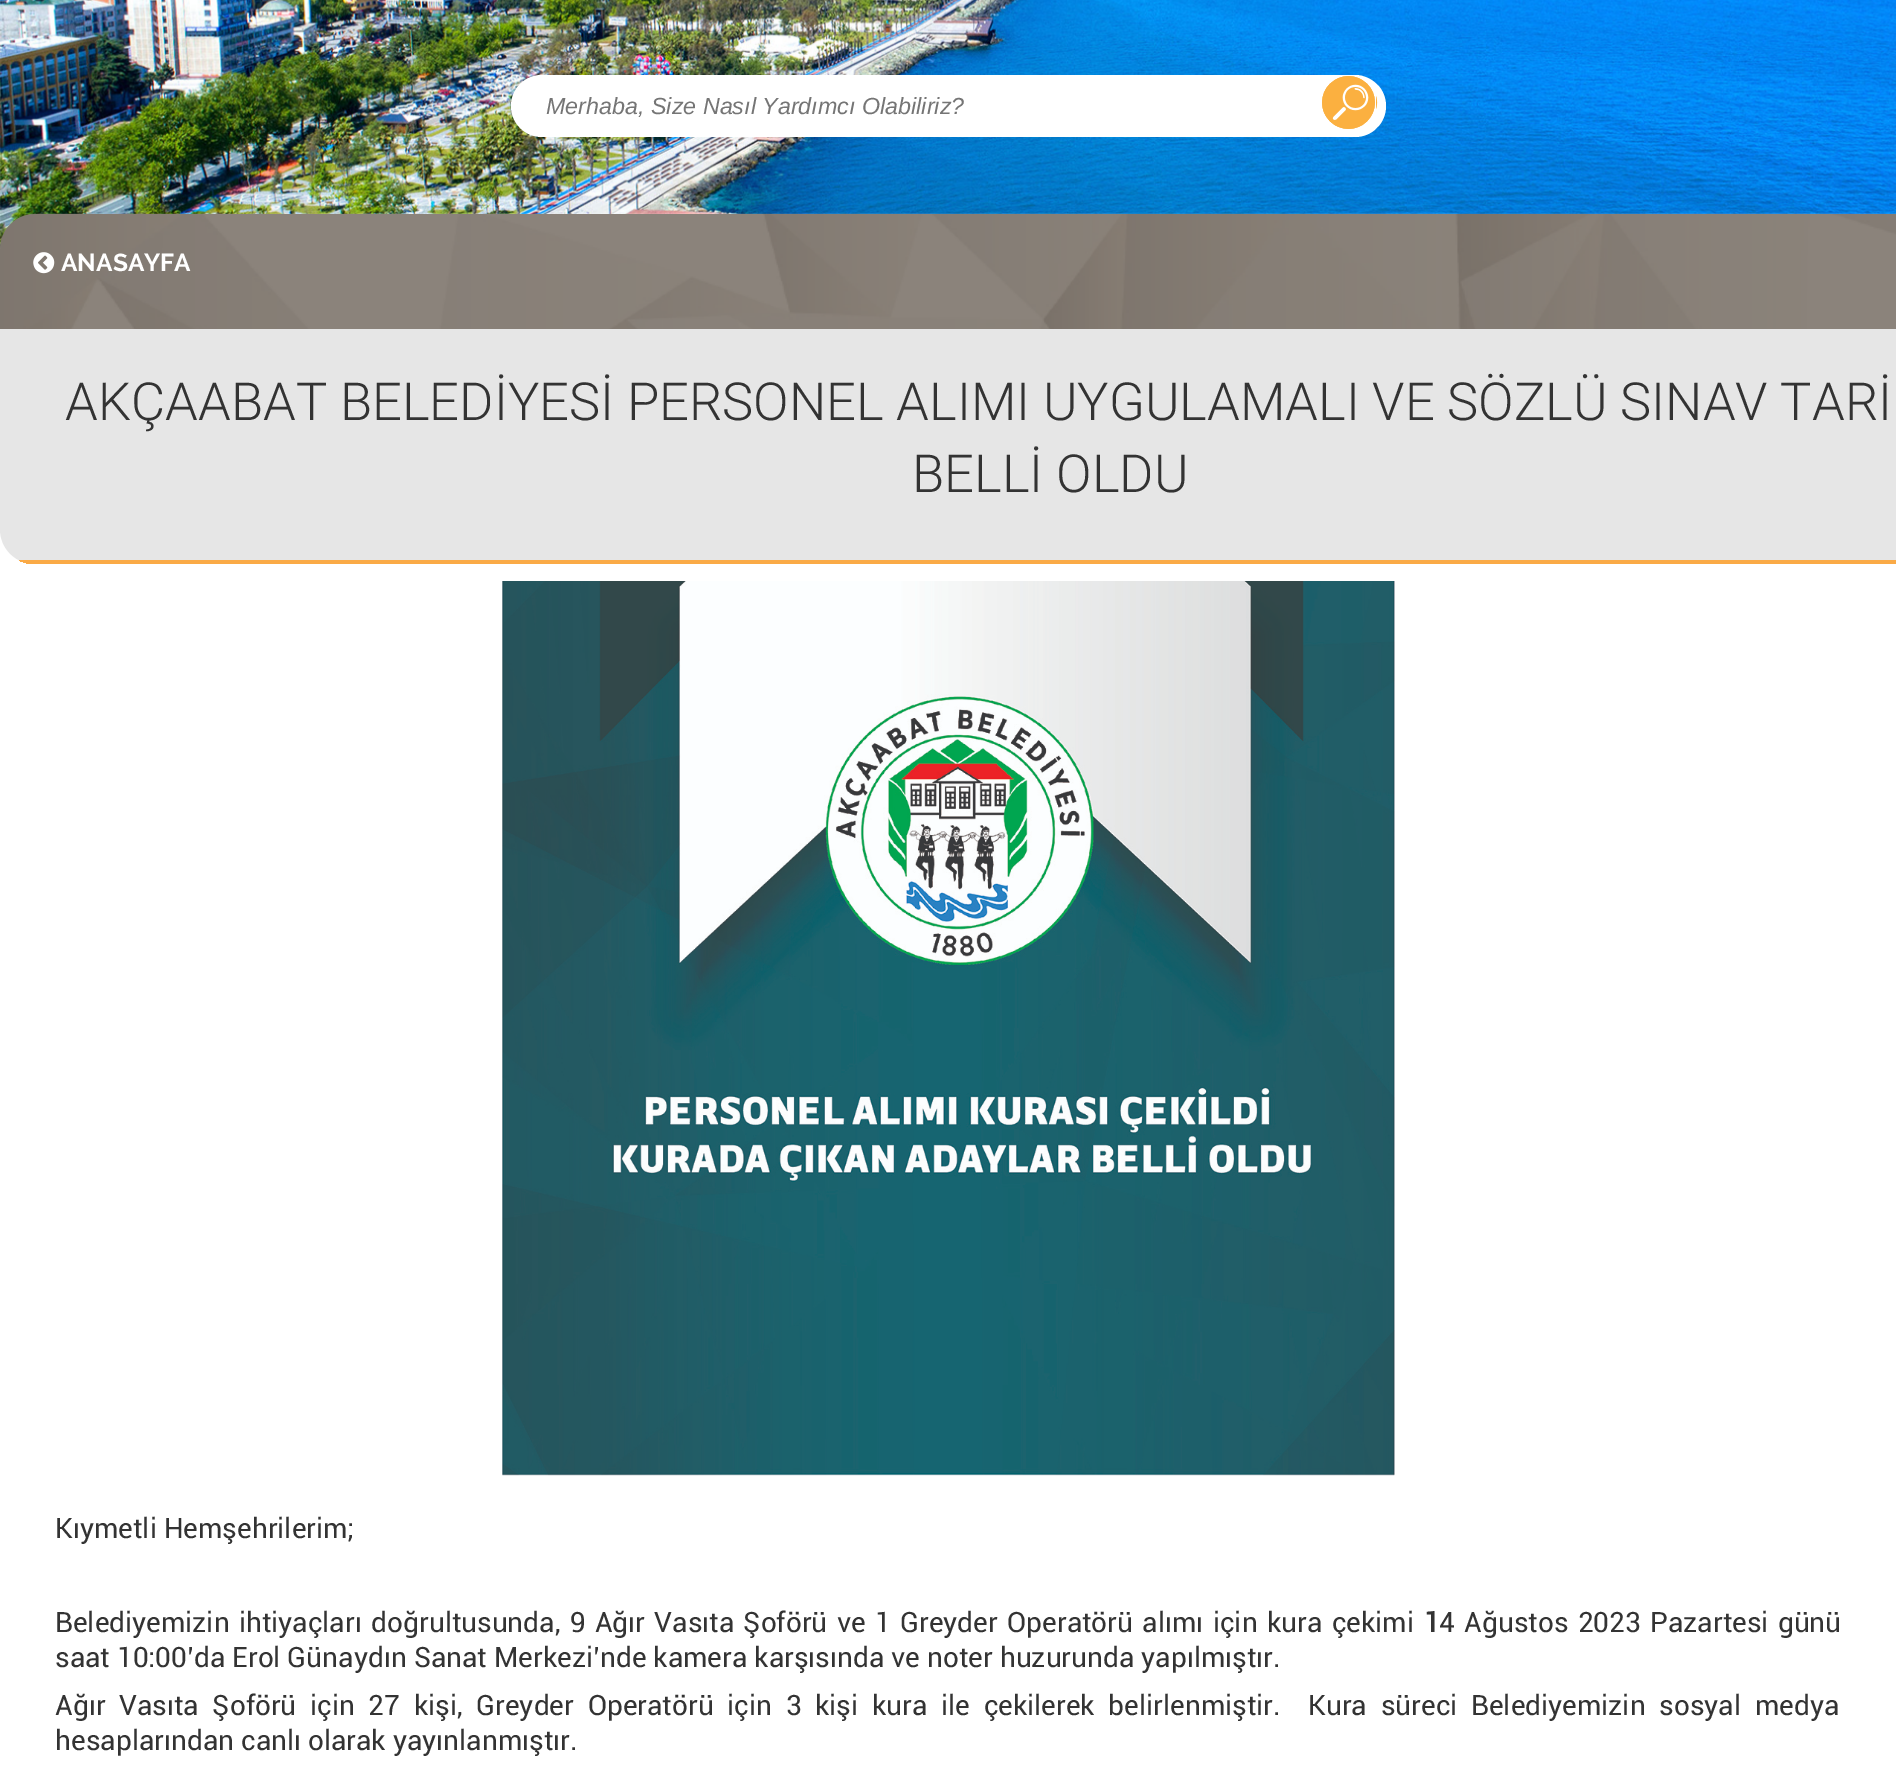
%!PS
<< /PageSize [1896 1767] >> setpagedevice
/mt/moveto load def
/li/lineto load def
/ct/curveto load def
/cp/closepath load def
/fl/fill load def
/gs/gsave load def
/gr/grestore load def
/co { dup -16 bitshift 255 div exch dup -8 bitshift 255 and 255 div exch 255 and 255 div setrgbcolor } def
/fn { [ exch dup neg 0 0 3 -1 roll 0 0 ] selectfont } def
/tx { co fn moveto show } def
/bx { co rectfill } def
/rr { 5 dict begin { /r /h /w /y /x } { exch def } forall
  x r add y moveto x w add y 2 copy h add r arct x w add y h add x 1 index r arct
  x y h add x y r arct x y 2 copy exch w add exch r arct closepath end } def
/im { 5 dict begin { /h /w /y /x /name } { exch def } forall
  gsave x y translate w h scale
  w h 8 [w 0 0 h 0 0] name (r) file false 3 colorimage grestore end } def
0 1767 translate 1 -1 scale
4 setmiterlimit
0 0 1896 1767 16#FFFFFF bx
(media/1.raw) 0 0 1896 249 im
511 75 875 62 31 rr fl
(media/2.raw) 1322 76 56 53 im
(media/3.raw) 1322 76 56 53 im
16#E6E6E6 co
0 312 mt 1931 312 li 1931 529 li 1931 548.5 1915.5 564 1896 564 ct 35 564 li 15.5 564 0 548.5 0 529 ct cp fl
16#6E645A co
35 214 mt 1896 214 li 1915.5 214 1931 229.5 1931 249 ct 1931 329 li 0 329 li 0 249 li 0 229.5 15.5 214 35 214 ct cp fl
(media/4.raw) 0 213 1896 116 im
(media/5.raw) 33 252 22 22 im
gs
0 312 mt 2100 312 li 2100 529 li 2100 548.5 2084.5 564 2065 564 ct 35 564 li 15.5 564 0 548.5 0 529 ct cp clip newpath
19 560 1877 4 16#FAAA46 bx
gr
(media/6.raw) 502 581 893 895 im
(Merhaba, Size Nasıl Yardımcı Olabiliriz?) 546 114 /LiberationSans-Italic 23.3 16#757575 tx
(ANASAYFA) 61 271 /Raleway-Bold 24.5 16#FFFFFF tx
(AKÇAABAT BELEDİYESİ PERSONEL ALIMI UYGULAMALI VE SÖZLÜ SINAV TARİ) 65 420 /Roboto-Light 52.5 16#333333 tx
(BELLİ OLDU) 912 492 /Roboto-Light 52.5 16#333333 tx
(Kıymetli Hemşehrilerim;) 55 1538 /Roboto-Regular 28 16#333333 tx
55 1632 mt 2.4 0 32 (Belediyemizin ihtiyaçları doğrultusunda, 9 Ağır Vasıta Şoförü ve 1 Greyder Operatörü alımı için kura çekimi) widthshow
(1) 1424 1632 /Roboto-Bold 28 16#333333 tx
/Roboto-Regular 28 fn
1439 1632 mt 2.4 0 32 (4 Ağustos 2023 Pazartesi günü) widthshow
(saat 10:00’da Erol Günaydın Sanat Merkezi’nde kamera karşısında ve noter huzurunda yapılmıştır.) 55 1667 /Roboto-Regular 28 16#333333 tx
55 1715 mt 6.75 0 32 (Ağır Vasıta Şoförü için 27 kişi, Greyder Operatörü için 3 kişi kura ile çekilerek belirlenmiştir.  Kura süreci Belediyemizin sosyal medya) widthshow
(hesaplarından canlı olarak yayınlanmıştır.) 55 1750 /Roboto-Regular 28 16#333333 tx
showpage
